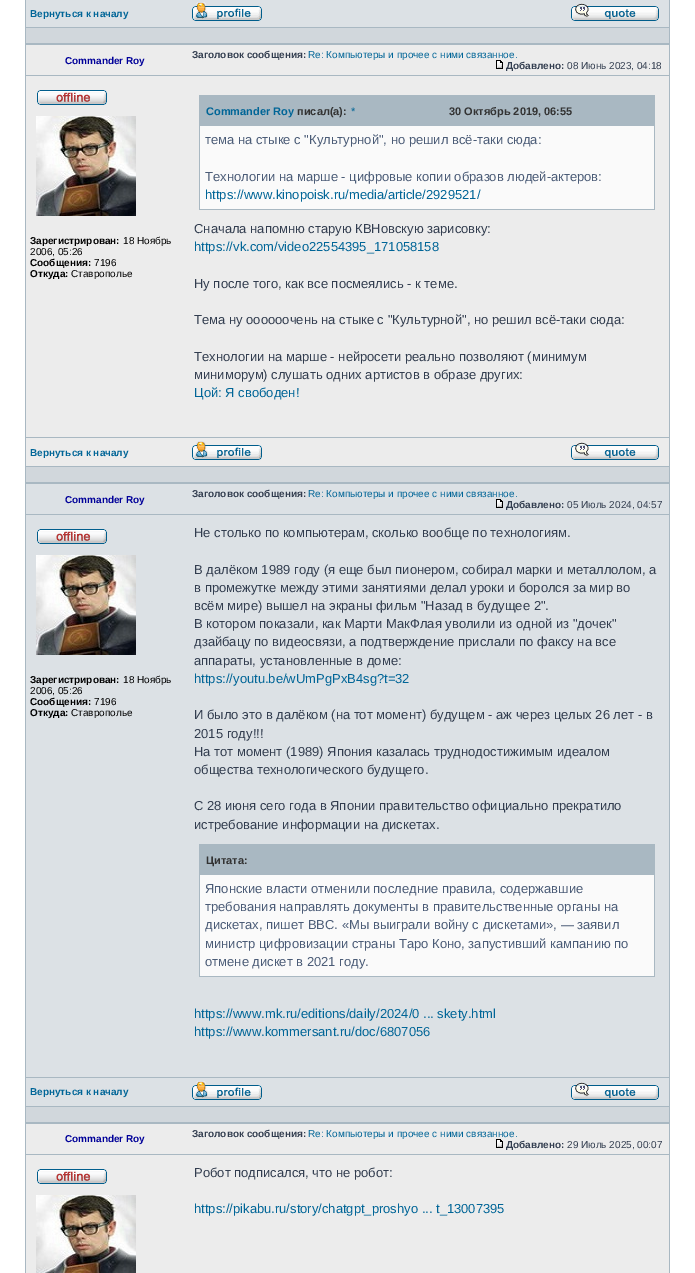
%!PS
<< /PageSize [695 1273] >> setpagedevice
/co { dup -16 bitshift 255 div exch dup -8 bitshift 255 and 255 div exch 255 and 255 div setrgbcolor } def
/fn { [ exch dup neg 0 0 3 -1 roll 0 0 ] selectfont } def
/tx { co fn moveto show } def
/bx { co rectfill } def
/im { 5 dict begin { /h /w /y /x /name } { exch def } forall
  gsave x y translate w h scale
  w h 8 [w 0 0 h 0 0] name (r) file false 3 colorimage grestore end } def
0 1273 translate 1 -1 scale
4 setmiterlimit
0 0 695 1273 16#FFFFFF bx
25 0 645 1273 16#A9B8C2 bx
26 0 643 27 16#DCE1E5 bx
(media/1.raw) 192 2 70 19 im
(media/2.raw) 571 3 88 18 im
26 28 643 15 16#D1D7DC bx
26 45 643 30 16#ECECEC bx
26 76 643 361 16#ECECEC bx
(media/4.raw) 37 90 70 15 im
(media/5.raw) 36 116 100 100 im
200 96 454 30 16#A9B8C2 bx
199 95 456 1 16#A9B8C2 bx
654 95 1 115 16#A9B8C2 bx
199 95 1 31 16#A9B8C2 bx
200 126 454 83 16#FAFAFA bx
199 209 456 1 16#A9B8C2 bx
199 126 1 84 16#A9B8C2 bx
26 438 643 28 16#ECECEC bx
(media/6.raw) 192 441 70 19 im
(media/7.raw) 571 442 88 18 im
26 467 643 15 16#D1D7DC bx
26 484 643 30 16#DCE1E5 bx
26 515 643 562 16#DCE1E5 bx
(media/9.raw) 37 529 70 15 im
(media/5.raw) 36 555 100 100 im
200 845 454 30 16#A9B8C2 bx
199 844 456 1 16#A9B8C2 bx
654 844 1 133 16#A9B8C2 bx
199 844 1 31 16#A9B8C2 bx
200 875 454 101 16#FAFAFA bx
199 976 456 1 16#A9B8C2 bx
199 875 1 102 16#A9B8C2 bx
26 1078 643 28 16#DCE1E5 bx
(media/1.raw) 192 1081 70 19 im
(media/2.raw) 571 1082 88 18 im
26 1107 643 15 16#D1D7DC bx
26 1124 643 30 16#ECECEC bx
26 1155 643 118 16#ECECEC bx
(media/4.raw) 37 1169 70 15 im
(media/10.raw) 36 1195 100 78 im
(Вернуться к началу) 30 17 /LiberationSans-Bold 10 16#006597 tx
(Commander Roy) 65 64 /LiberationSans-Bold 10 16#000099 tx
(Заголовок сообщения:) 192 58 /LiberationSans-Bold 10 16#323D4F tx
(Re: Компьютеры и прочее с ними связанное.) 308 58 /LiberationSans-Regular 10 16#006597 tx
(media/3.raw) 496 60 7 9 im
(Добавлено:) 506 69 /LiberationSans-Bold 10 16#323D4F tx
(08 Июнь 2023, 04:18) 567 69 /LiberationSans-Regular 10 16#323D4F tx
(Зарегистрирован:) 30 244 /LiberationSans-Bold 10 16#000000 tx
(18 Ноябрь) 123 244 /LiberationSans-Regular 10 16#000000 tx
(2006, 05:26) 30 255 /LiberationSans-Regular 10 16#000000 tx
(Сообщения:) 30 266 /LiberationSans-Bold 10 16#000000 tx
(7196) 94 266 /LiberationSans-Regular 10 16#000000 tx
(Откуда:) 30 277 /LiberationSans-Bold 10 16#000000 tx
(Ставрополье) 71 277 /LiberationSans-Regular 10 16#000000 tx
(Commander Roy) 206 115 /LiberationSans-Bold 11 16#006597 tx
(писал\(а\):) 297 115 /LiberationSans-Bold 11 16#333333 tx
(*) 351 115 /LiberationSans-Regular 11 16#006597 tx
(30 Октябрь 2019, 06:55) 449 115 /LiberationSans-Bold 11 16#333333 tx
(тема на стыке с "Культурной", но решил всё-таки сюда:) 205 144 /LiberationSans-Regular 13 16#4B5C77 tx
(Технологии на марше - цифровые копии образов людей-актеров:) 205 181 /LiberationSans-Regular 13 16#4B5C77 tx
(https://www.kinopoisk.ru/media/article/2929521/) 205 199 /LiberationSans-Regular 13 16#006597 tx
(Сначала напомню старую КВНовскую зарисовку:) 194 233 /LiberationSans-Regular 13 16#323D4F tx
(https://vk.com/video22554395_171058158) 194 251 /LiberationSans-Regular 13 16#006597 tx
(Ну после того, как все посмеялись - к теме.) 194 288 /LiberationSans-Regular 13 16#323D4F tx
(Тема ну оооооочень на стыке с "Культурной", но решил всё-таки сюда:) 194 324 /LiberationSans-Regular 13 16#323D4F tx
(Технологии на марше - нейросети реально позволяют \(минимум) 194 361 /LiberationSans-Regular 13 16#323D4F tx
(миниморум\) слушать одних артистов в образе других:) 194 379 /LiberationSans-Regular 13 16#323D4F tx
(Цой: Я свободен!) 194 397 /LiberationSans-Regular 13 16#006597 tx
(Вернуться к началу) 30 456 /LiberationSans-Bold 10 16#006597 tx
(Commander Roy) 65 503 /LiberationSans-Bold 10 16#000099 tx
(Заголовок сообщения:) 192 497 /LiberationSans-Bold 10 16#323D4F tx
(Re: Компьютеры и прочее с ними связанное.) 308 497 /LiberationSans-Regular 10 16#006597 tx
(media/8.raw) 496 499 7 9 im
(Добавлено:) 506 508 /LiberationSans-Bold 10 16#323D4F tx
(05 Июль 2024, 04:57) 567 508 /LiberationSans-Regular 10 16#323D4F tx
(Зарегистрирован:) 30 683 /LiberationSans-Bold 10 16#000000 tx
(18 Ноябрь) 123 683 /LiberationSans-Regular 10 16#000000 tx
(2006, 05:26) 30 694 /LiberationSans-Regular 10 16#000000 tx
(Сообщения:) 30 705 /LiberationSans-Bold 10 16#000000 tx
(7196) 94 705 /LiberationSans-Regular 10 16#000000 tx
(Откуда:) 30 716 /LiberationSans-Bold 10 16#000000 tx
(Ставрополье) 71 716 /LiberationSans-Regular 10 16#000000 tx
(Не столько по компьютерам, сколько вообще по технологиям.) 194 537 /LiberationSans-Regular 13 16#323D4F tx
(В далёком 1989 году \(я еще был пионером, собирал марки и металлолом, а) 194 574 /LiberationSans-Regular 13 16#323D4F tx
(в промежутке между этими занятиями делал уроки и боролся за мир во) 194 592 /LiberationSans-Regular 13 16#323D4F tx
(всём мире\) вышел на экраны фильм "Назад в будущее 2".) 194 610 /LiberationSans-Regular 13 16#323D4F tx
(В котором показали, как Марти МакФлая уволили из одной из "дочек") 194 628 /LiberationSans-Regular 13 16#323D4F tx
(дзайбацу по видеосвязи, а подтверждение прислали по факсу на все) 194 646 /LiberationSans-Regular 13 16#323D4F tx
(аппараты, установленные в доме:) 194 665 /LiberationSans-Regular 13 16#323D4F tx
(https://youtu.be/wUmPgPxB4sg?t=32) 194 683 /LiberationSans-Regular 13 16#006597 tx
(И было это в далёком \(на тот момент\) будущем - аж через целых 26 лет - в) 194 719 /LiberationSans-Regular 13 16#323D4F tx
(2015 году!!!) 194 738 /LiberationSans-Regular 13 16#323D4F tx
(На тот момент \(1989\) Япония казалась труднодостижимым идеалом) 194 756 /LiberationSans-Regular 13 16#323D4F tx
(общества технологического будущего.) 194 774 /LiberationSans-Regular 13 16#323D4F tx
(С 28 июня сего года в Японии правительство официально прекратило) 194 810 /LiberationSans-Regular 13 16#323D4F tx
(истребование информации на дискетах.) 194 829 /LiberationSans-Regular 13 16#323D4F tx
(Цитата:) 206 864 /LiberationSans-Bold 11 16#333333 tx
(Японские власти отменили последние правила, содержавшие) 205 893 /LiberationSans-Regular 13 16#4B5C77 tx
(требования направлять документы в правительственные органы на) 205 911 /LiberationSans-Regular 13 16#4B5C77 tx
(дискетах, пишет BBC. «Мы выиграли войну с дискетами», — заявил) 205 929 /LiberationSans-Regular 13 16#4B5C77 tx
(министр цифровизации страны Таро Коно, запустивший кампанию по) 205 948 /LiberationSans-Regular 13 16#4B5C77 tx
(отмене дискет в 2021 году.) 205 966 /LiberationSans-Regular 13 16#4B5C77 tx
(https://www.mk.ru/editions/daily/2024/0 ... skety.html) 194 1018 /LiberationSans-Regular 13 16#006597 tx
(https://www.kommersant.ru/doc/6807056) 194 1036 /LiberationSans-Regular 13 16#006597 tx
(Вернуться к началу) 30 1095 /LiberationSans-Bold 10 16#006597 tx
(Commander Roy) 65 1142 /LiberationSans-Bold 10 16#000099 tx
(Заголовок сообщения:) 192 1137 /LiberationSans-Bold 10 16#323D4F tx
(Re: Компьютеры и прочее с ними связанное.) 308 1137 /LiberationSans-Regular 10 16#006597 tx
(media/3.raw) 496 1139 7 9 im
(Добавлено:) 506 1148 /LiberationSans-Bold 10 16#323D4F tx
(29 Июль 2025, 00:07) 567 1148 /LiberationSans-Regular 10 16#323D4F tx
(Робот подписался, что не робот:) 194 1177 /LiberationSans-Regular 13 16#323D4F tx
(https://pikabu.ru/story/chatgpt_proshyo ... t_13007395) 194 1213 /LiberationSans-Regular 13 16#006597 tx
showpage
